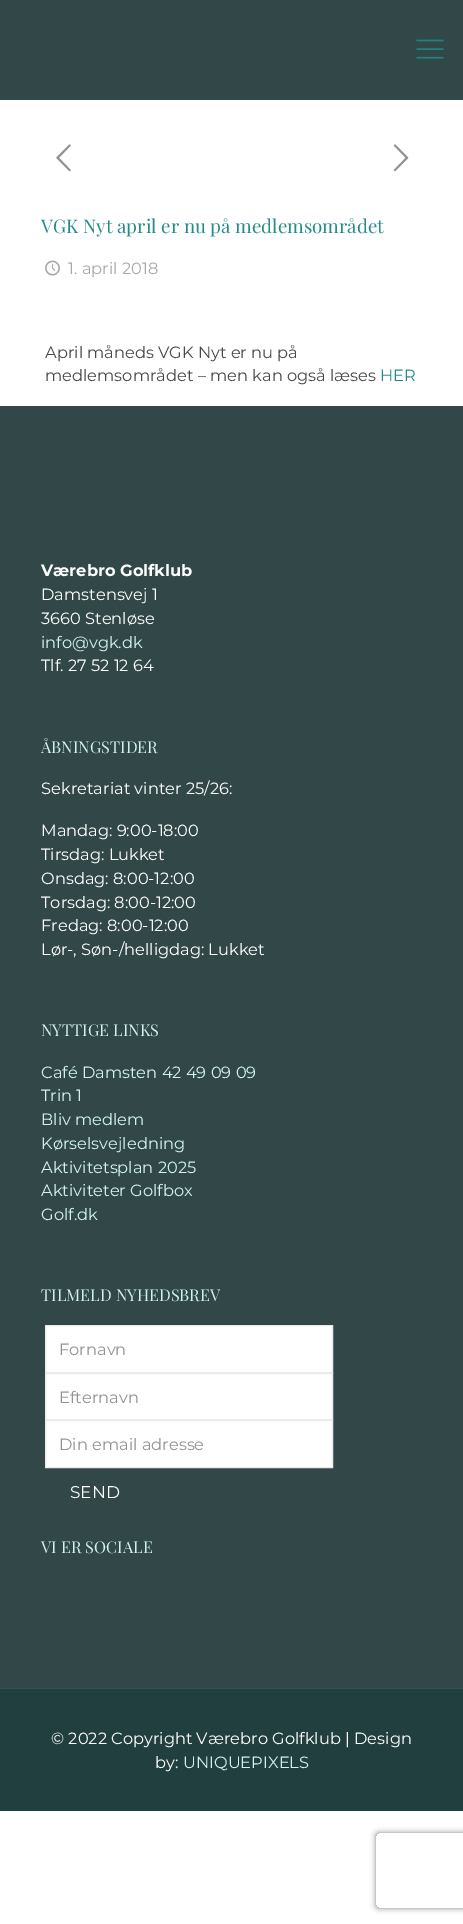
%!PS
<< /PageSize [463 1924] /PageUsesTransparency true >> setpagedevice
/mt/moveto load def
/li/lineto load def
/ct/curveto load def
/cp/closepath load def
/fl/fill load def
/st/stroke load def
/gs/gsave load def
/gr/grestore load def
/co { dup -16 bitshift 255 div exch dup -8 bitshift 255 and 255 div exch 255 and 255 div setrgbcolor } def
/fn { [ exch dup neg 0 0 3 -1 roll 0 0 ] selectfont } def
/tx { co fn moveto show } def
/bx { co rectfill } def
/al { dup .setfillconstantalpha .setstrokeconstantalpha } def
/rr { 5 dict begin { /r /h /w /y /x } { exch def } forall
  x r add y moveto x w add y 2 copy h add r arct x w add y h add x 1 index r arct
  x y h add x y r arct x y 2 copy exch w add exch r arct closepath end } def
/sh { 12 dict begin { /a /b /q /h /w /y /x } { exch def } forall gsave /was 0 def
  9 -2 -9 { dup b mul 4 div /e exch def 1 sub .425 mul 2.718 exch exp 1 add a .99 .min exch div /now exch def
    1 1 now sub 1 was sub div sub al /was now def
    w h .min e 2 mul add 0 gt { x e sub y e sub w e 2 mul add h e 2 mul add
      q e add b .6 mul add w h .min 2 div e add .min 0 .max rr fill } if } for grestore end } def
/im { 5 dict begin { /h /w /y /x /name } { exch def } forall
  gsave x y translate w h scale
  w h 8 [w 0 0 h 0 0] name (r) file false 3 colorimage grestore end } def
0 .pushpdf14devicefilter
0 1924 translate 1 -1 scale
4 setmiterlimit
0 0 463 1924 16#FFFFFF bx
0 0 463 100 16#324848 bx
(media/1.raw) 416 39 28 20 im
(media/2.raw) 56 144 15 28 im
(media/3.raw) 393 144 16 28 im
(media/4.raw) 45 260 15 16 im
0 406 463 1282 16#324848 bx
16#FFFFFF co
45.5 1325.5 mt 332.5 1325.5 li 332.5 1372.5 li 45.5 1372.5 li cp gs fl gr
16#EBEBEB co
st
16#FFFFFF co
45.5 1373.5 mt 332.5 1373.5 li 332.5 1419.5 li 45.5 1419.5 li cp gs fl gr
16#EBEBEB co
st
16#FFFFFF co
45.5 1420.5 mt 332.5 1420.5 li 332.5 1467.5 li 45.5 1467.5 li cp gs fl gr
16#EBEBEB co
st
0 1689 463 122 16#213F3F bx
0 1688 463 1 16#375252 bx
gs
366 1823 mt 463 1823 li 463 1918 li 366 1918 li cp 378.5 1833 mt 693.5 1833 li 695 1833 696 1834 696 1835.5 ct 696 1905.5 li 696 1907 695 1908 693.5 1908 ct 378.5 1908 li 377 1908 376 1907 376 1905.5 ct 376 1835.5 li 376 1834 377 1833 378.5 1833 ct cp eoclip newpath
16#808080 co
376 1833 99 75 2.5 3 1 sh
gr
(VGK Nyt april er nu på medlemsområdet) 41 233 /PlayfairDisplay-Regular 18.75 16#248A8A tx
(1. april 2018) 68 274 /Montserrat-Regular 16.25 16#A8A8A8 tx
(April måneds VGK Nyt er nu på) 45 358 /Montserrat-Regular 16.25 16#494949 tx
(medlemsområdet – men kan også læses) 45 381 /Montserrat-Regular 16.25 16#494949 tx
(HER) 380 381 /Montserrat-Regular 16.25 16#248A8A tx
(Værebro Golfklub) 41 576 /Montserrat-Bold 16.25 16#FFFFFF tx
(Damstensvej 1) 41 600 /Montserrat-Regular 16.25 16#FFFFFF tx
(3660 Stenløse) 41 624 /Montserrat-Regular 16.25 16#FFFFFF tx
(info@vgk.dk) 41 648 /Montserrat-Regular 16.25 16#D2F2ED tx
(Tlf. 27 52 12 64) 41 671 /Montserrat-Regular 16.25 16#FFFFFF tx
(ÅBNINGSTIDER) 41 753 /PlayfairDisplay-Regular 16.25 16#D2F2ED tx
(Sekretariat vinter 25/26:) 41 794 /Montserrat-Regular 16.25 16#FFFFFF tx
(Mandag: 9:00-18:00) 41 836 /Montserrat-Regular 16.25 16#FFFFFF tx
(Tirsdag: Lukket) 41 860 /Montserrat-Regular 16.25 16#FFFFFF tx
(Onsdag: 8:00-12:00) 41 884 /Montserrat-Regular 16.25 16#FFFFFF tx
(Torsdag: 8:00-12:00) 41 908 /Montserrat-Regular 16.25 16#FFFFFF tx
(Fredag: 8:00-12:00) 41 931 /Montserrat-Regular 16.25 16#FFFFFF tx
(Lør-, Søn-/helligdag: Lukket) 41 955 /Montserrat-Regular 16.25 16#FFFFFF tx
(NYTTIGE LINKS) 41 1036 /PlayfairDisplay-Regular 16.25 16#D2F2ED tx
(Café Damsten 42 49 09 09) 41 1078 /Montserrat-Regular 16.25 16#D2F2ED tx
(Trin 1) 41 1101 /Montserrat-Regular 16.25 16#D2F2ED tx
(Bliv medlem) 41 1125 /Montserrat-Regular 16.25 16#D2F2ED tx
(Kørselsvejledning) 41 1149 /Montserrat-Regular 16.25 16#D2F2ED tx
(Aktivitetsplan 2025) 41 1173 /Montserrat-Regular 16.25 16#D2F2ED tx
(Aktiviteter Golfbox) 41 1196 /Montserrat-Regular 16.25 16#D2F2ED tx
(Golf.dk) 41 1220 /Montserrat-Regular 16.25 16#D2F2ED tx
(TILMELD NYHEDSBREV) 41 1301 /PlayfairDisplay-Regular 16.25 16#D2F2ED tx
(Fornavn) 59 1355 /Montserrat-Regular 16.25 16#929292 tx
(Efternavn) 59 1403 /Montserrat-Regular 16.25 16#929292 tx
(Din email adresse) 59 1450 /Montserrat-Regular 16.25 16#929292 tx
(SEND) 70 1498 /Montserrat-Regular 17 16#FFFFFF tx
(VI ER SOCIALE) 41 1553 /PlayfairDisplay-Regular 16.25 16#D2F2ED tx
(© 2022 Copyright Værebro Golfklub | Design) 51 1744 /Montserrat-Regular 16.25 16#FFFFFF tx
(by:) 155 1768 /Montserrat-Regular 16.25 16#FFFFFF tx
(UNIQUEPIXELS) 183 1768 /Montserrat-Regular 16.25 16#D2F2ED tx
.poppdf14devicefilter showpage
